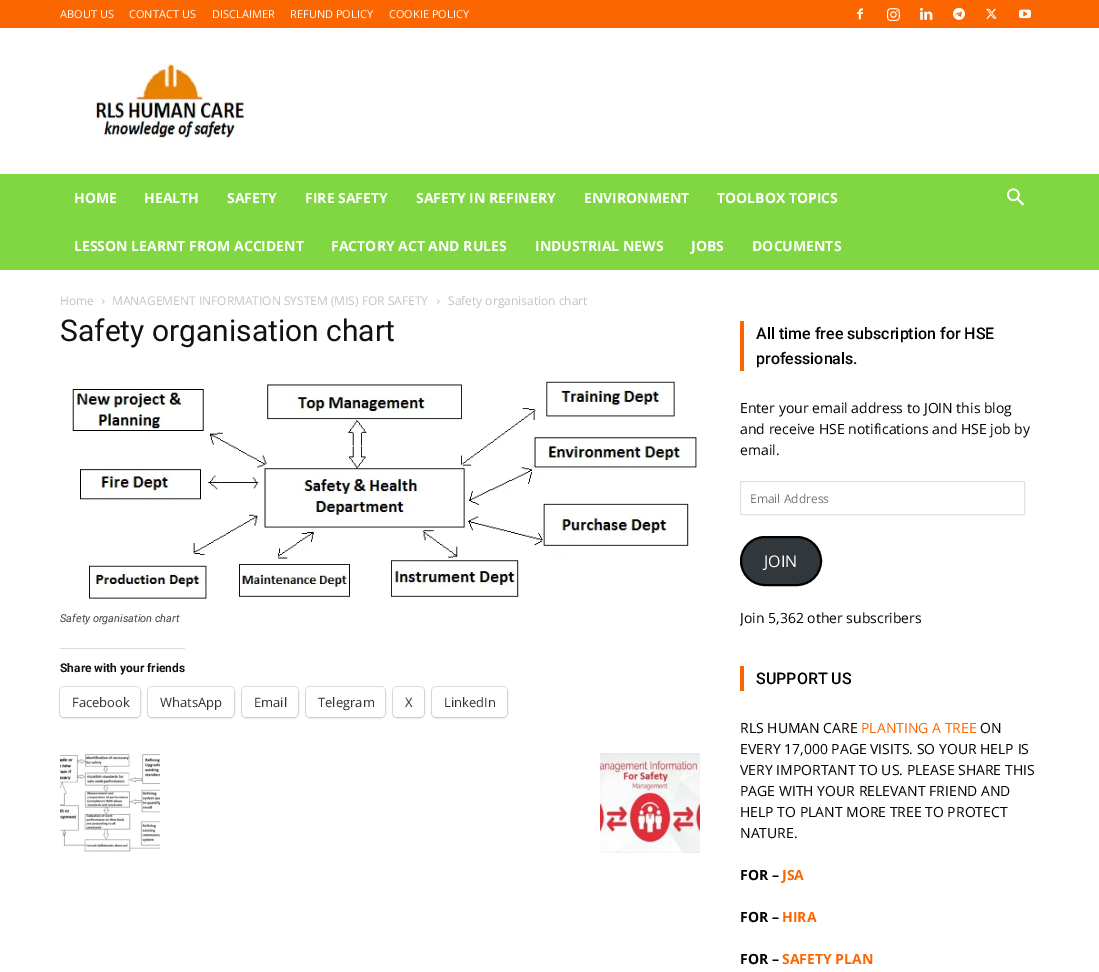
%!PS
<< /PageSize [1099 972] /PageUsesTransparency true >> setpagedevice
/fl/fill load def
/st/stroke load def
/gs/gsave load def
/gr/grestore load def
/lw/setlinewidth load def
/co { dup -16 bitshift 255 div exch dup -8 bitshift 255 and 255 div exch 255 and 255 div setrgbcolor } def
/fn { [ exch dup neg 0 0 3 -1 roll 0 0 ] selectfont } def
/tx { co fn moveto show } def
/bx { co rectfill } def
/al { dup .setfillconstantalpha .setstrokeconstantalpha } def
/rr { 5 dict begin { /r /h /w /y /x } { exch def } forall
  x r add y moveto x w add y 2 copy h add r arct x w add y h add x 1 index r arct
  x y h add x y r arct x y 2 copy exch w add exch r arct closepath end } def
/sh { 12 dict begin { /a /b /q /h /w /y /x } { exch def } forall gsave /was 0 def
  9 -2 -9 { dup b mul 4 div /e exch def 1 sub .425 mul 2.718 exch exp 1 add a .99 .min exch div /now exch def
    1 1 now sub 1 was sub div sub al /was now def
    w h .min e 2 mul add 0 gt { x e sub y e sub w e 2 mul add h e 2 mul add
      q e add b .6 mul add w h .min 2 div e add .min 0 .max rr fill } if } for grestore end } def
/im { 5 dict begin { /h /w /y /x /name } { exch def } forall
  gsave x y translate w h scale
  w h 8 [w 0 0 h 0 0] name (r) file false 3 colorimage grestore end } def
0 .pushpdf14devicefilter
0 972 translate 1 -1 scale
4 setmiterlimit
0 0 1099 972 16#FFFFFF bx
0 0 1099 28 16#FC6600 bx
(media/1.raw) 857 8 6 12 im
(media/2.raw) 887 8 13 13 im
(media/3.raw) 920 7 13 13 im
(media/4.raw) 953 7 12 13 im
(media/5.raw) 986 8 11 11 im
(media/6.raw) 1019 9 12 10 im
(media/7.raw) 93 64 151 74 im
0 174 1099 96 16#81D742 bx
(media/8.raw) 1007 188 17 18 im
(media/9.raw) 102 299 3 5 im
(media/9.raw) 437 299 3 5 im
(media/10.raw) 72 381 625 218 im
60 648 125 1 16#DCDCDE bx
16#E0E0E0 co
59.5 686.5 81 31 4.5 rr st
16#000000 co
60 688 80 30 4 1 .12 sh
16#FFFFFF co
60 687 80 30 4 rr fl
16#E0E0E0 co
147.5 686.5 87 31 4.5 rr st
16#000000 co
148 688 86 30 4 1 .12 sh
16#FFFFFF co
148 687 86 30 4 rr fl
16#E0E0E0 co
241.5 686.5 57 31 4.5 rr st
16#000000 co
242 688 56 30 4 1 .12 sh
16#FFFFFF co
242 687 56 30 4 rr fl
16#E0E0E0 co
305.5 686.5 80 31 4.5 rr st
16#000000 co
306 688 79 30 4 1 .12 sh
16#FFFFFF co
306 687 79 30 4 rr fl
16#E0E0E0 co
392.5 686.5 32 31 4.5 rr st
16#000000 co
393 688 31 30 4 1 .12 sh
16#FFFFFF co
393 687 31 30 4 rr fl
16#E0E0E0 co
431.5 686.5 76 31 4.5 rr st
16#000000 co
432 688 75 30 4 1 .12 sh
16#FFFFFF co
432 687 75 30 4 rr fl
(media/11.raw) 60 754 100 98 im
(media/12.raw) 600 753 100 100 im
740 321 4 50 16#FC6600 bx
16#E1E1E1 co
740.5 481.5 284 33 rectstroke
16#32373C co
741 537 80 48 24 rr gs fl gr
16#000000 co
2 lw
st
740 666 4 25 16#FC6600 bx
(ABOUT US) 60 18 /OpenSans-Regular 11 16#FFFFFF tx
(CONTACT US) 129 18 /OpenSans-Regular 11 16#FFFFFF tx
(DISCLAIMER) 212 18 /OpenSans-Regular 11 16#FFFFFF tx
(REFUND POLICY) 290 18 /OpenSans-Regular 11 16#FFFFFF tx
(COOKIE POLICY) 389 18 /OpenSans-Regular 11 16#FFFFFF tx
(HOME) 74 203 /OpenSans-Bold 14 16#FFFFFF tx
(HEALTH) 144 203 /OpenSans-Bold 14 16#FFFFFF tx
(SAFETY) 227 203 /OpenSans-Bold 14 16#FFFFFF tx
(FIRE SAFETY) 305 203 /OpenSans-Bold 14 16#FFFFFF tx
(SAFETY IN REFINERY) 416 203 /OpenSans-Bold 14 16#FFFFFF tx
(ENVIRONMENT) 584 203 /OpenSans-Bold 14 16#FFFFFF tx
(TOOLBOX TOPICS) 717 203 /OpenSans-Bold 14 16#FFFFFF tx
(LESSON LEARNT FROM ACCIDENT) 74 251 /OpenSans-Bold 14 16#FFFFFF tx
(FACTORY ACT AND RULES) 331 251 /OpenSans-Bold 14 16#FFFFFF tx
(INDUSTRIAL NEWS) 535 251 /OpenSans-Bold 14 16#FFFFFF tx
(JOBS) 691 251 /OpenSans-Bold 14 16#FFFFFF tx
(DOCUMENTS) 752 251 /OpenSans-Bold 14 16#FFFFFF tx
(Home) 60 305 /OpenSans-Regular 12 16#C3C3C3 tx
(MANAGEMENT INFORMATION SYSTEM \(MIS\) FOR SAFETY) 112 305 /OpenSans-Regular 12 16#C3C3C3 tx
(Safety organisation chart) 448 305 /OpenSans-Regular 12 16#C3C3C3 tx
(Safety organisation chart) 60 341 /Roboto-Regular 30 16#111111 tx
(Safety organisation chart) 60 622 /Roboto-Italic 11 16#444444 tx
(Share with your friends) 60 672 /Roboto-Bold 12 16#111111 tx
(Facebook) 72 707 /OpenSans-Regular 13 16#2C3338 tx
(WhatsApp) 160 707 /OpenSans-Regular 13 16#2C3338 tx
(Email) 254 707 /OpenSans-Regular 13 16#2C3338 tx
(Telegram) 318 707 /OpenSans-Regular 13 16#2C3338 tx
(X) 405 707 /OpenSans-Regular 13 16#2C3338 tx
(LinkedIn) 444 707 /OpenSans-Regular 13 16#2C3338 tx
(All time free subscription for HSE) 756 339 /Roboto-Medium 16 16#000000 tx
(professionals.) 756 364 /Roboto-Medium 16 16#000000 tx
(Enter your email address to JOIN this blog) 740 413 /OpenSans-Regular 14 16#000000 tx
(and receive HSE notifications and HSE job by) 740 434 /OpenSans-Regular 14 16#000000 tx
(email.) 740 455 /OpenSans-Regular 14 16#000000 tx
(Email Address) 750 503 /OpenSans-Regular 12 16#757575 tx
(JOIN) 764 567 /OpenSans-Regular 16 16#FFFFFF tx
gs
740 321 300 307 rectclip
(Join 5,362 other subscribers) 740 623 /OpenSans-Regular 14 16#000000 tx
gr
(SUPPORT US) 756 684 /Roboto-Medium 16 16#000000 tx
(RLS HUMAN CARE) 740 733 /OpenSans-Regular 14 16#000000 tx
(PLANTING A TREE) 861 733 /OpenSans-Regular 14 16#FC6600 tx
(ON) 980 733 /OpenSans-Regular 14 16#000000 tx
(EVERY 17,000 PAGE VISITS. SO YOUR HELP IS) 740 754 /OpenSans-Regular 14 16#000000 tx
(VERY IMPORTANT TO US. PLEASE SHARE THIS) 740 775 /OpenSans-Regular 14 16#000000 tx
(PAGE WITH YOUR RELEVANT FRIEND AND) 740 796 /OpenSans-Regular 14 16#000000 tx
(HELP TO PLANT MORE TREE TO PROTECT) 740 817 /OpenSans-Regular 14 16#000000 tx
(NATURE.) 740 838 /OpenSans-Regular 14 16#000000 tx
(FOR –) 740 880 /OpenSans-Bold 14 16#000000 tx
(JSA) 782 880 /OpenSans-Bold 14 16#FC6600 tx
(FOR –) 740 922 /OpenSans-Bold 14 16#000000 tx
(HIRA) 782 922 /OpenSans-Bold 14 16#FC6600 tx
(FOR –) 740 964 /OpenSans-Bold 14 16#000000 tx
(SAFETY PLAN) 782 964 /OpenSans-Bold 14 16#FC6600 tx
.poppdf14devicefilter showpage
